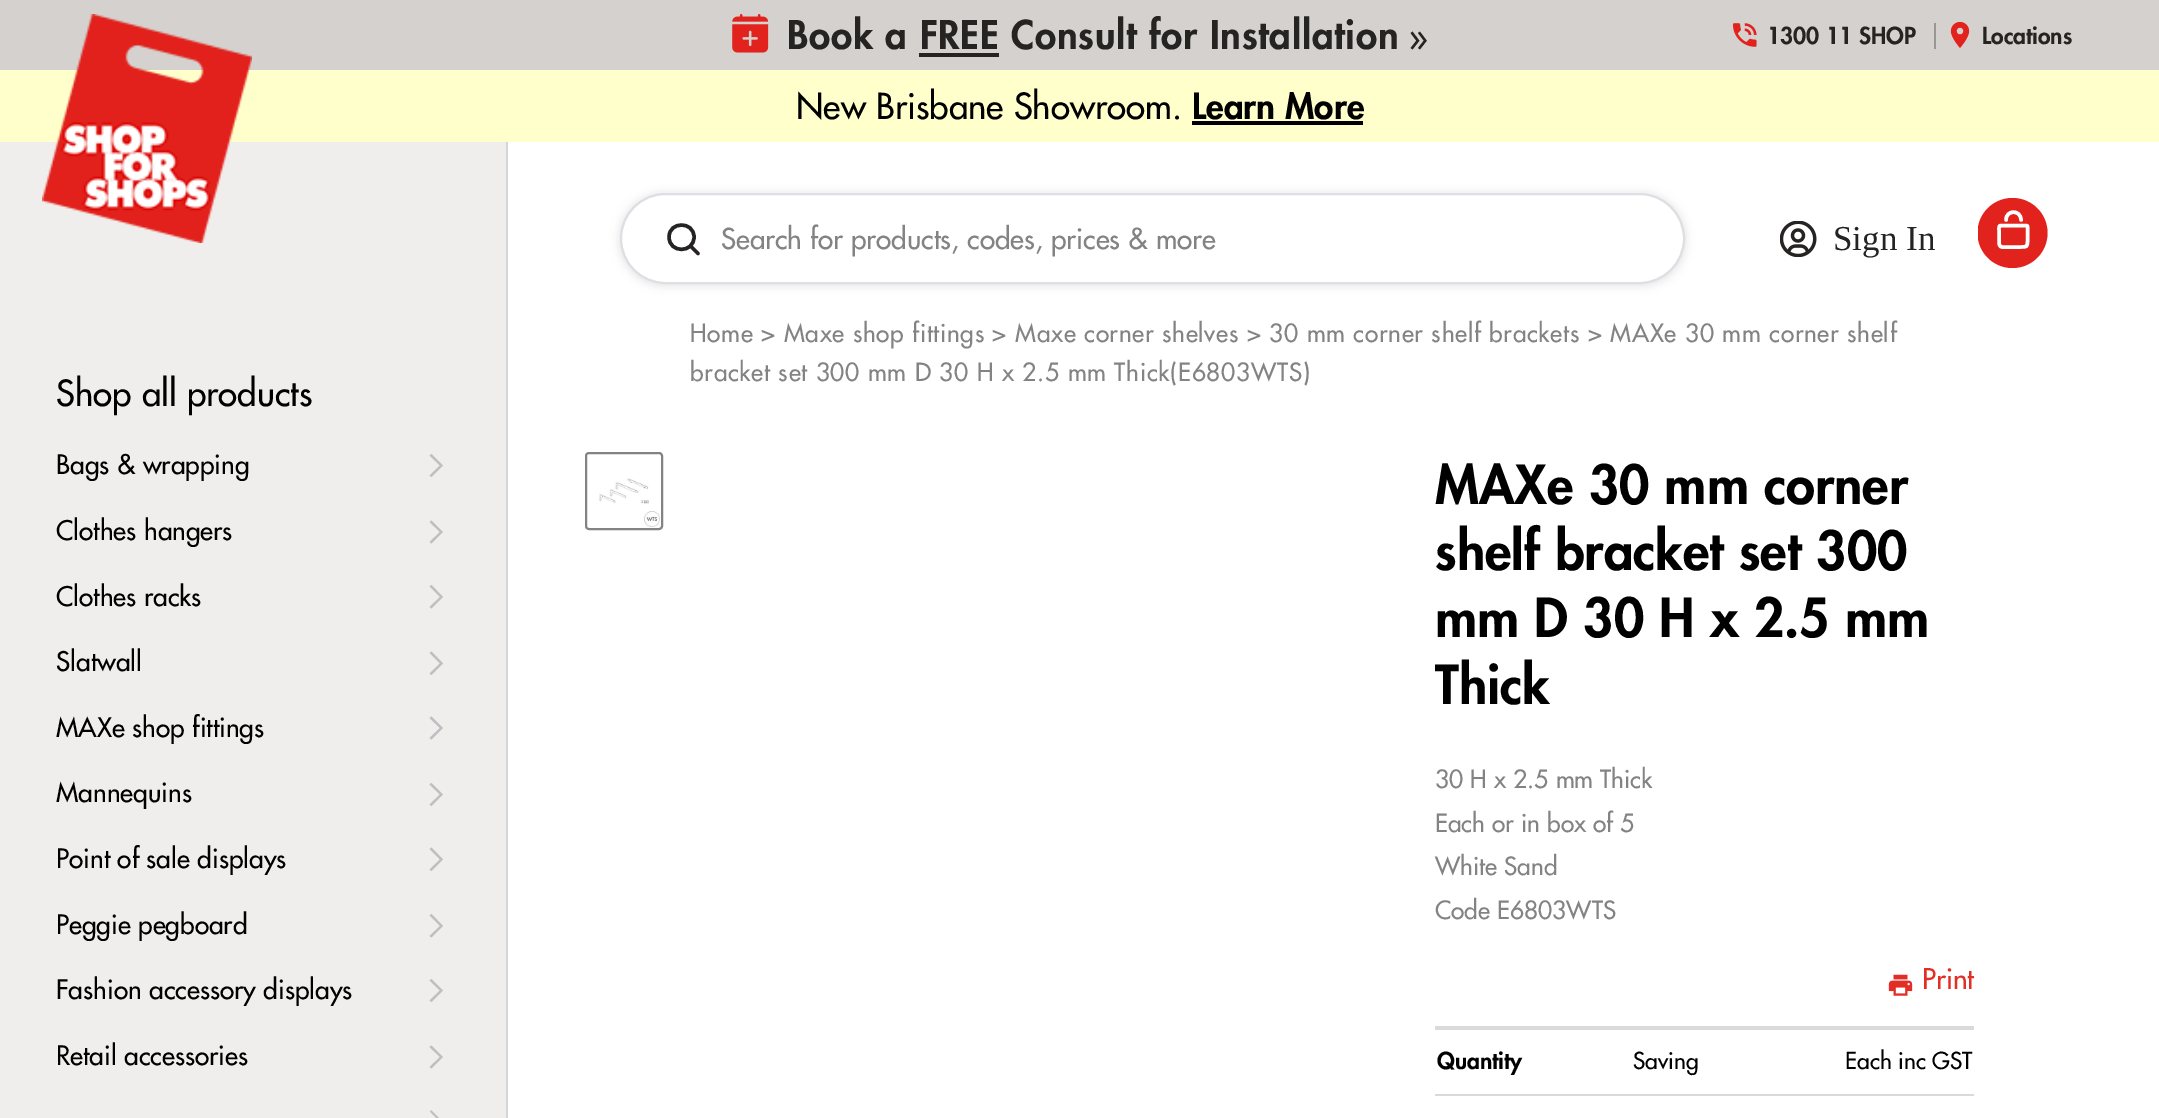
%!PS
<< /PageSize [2159 1118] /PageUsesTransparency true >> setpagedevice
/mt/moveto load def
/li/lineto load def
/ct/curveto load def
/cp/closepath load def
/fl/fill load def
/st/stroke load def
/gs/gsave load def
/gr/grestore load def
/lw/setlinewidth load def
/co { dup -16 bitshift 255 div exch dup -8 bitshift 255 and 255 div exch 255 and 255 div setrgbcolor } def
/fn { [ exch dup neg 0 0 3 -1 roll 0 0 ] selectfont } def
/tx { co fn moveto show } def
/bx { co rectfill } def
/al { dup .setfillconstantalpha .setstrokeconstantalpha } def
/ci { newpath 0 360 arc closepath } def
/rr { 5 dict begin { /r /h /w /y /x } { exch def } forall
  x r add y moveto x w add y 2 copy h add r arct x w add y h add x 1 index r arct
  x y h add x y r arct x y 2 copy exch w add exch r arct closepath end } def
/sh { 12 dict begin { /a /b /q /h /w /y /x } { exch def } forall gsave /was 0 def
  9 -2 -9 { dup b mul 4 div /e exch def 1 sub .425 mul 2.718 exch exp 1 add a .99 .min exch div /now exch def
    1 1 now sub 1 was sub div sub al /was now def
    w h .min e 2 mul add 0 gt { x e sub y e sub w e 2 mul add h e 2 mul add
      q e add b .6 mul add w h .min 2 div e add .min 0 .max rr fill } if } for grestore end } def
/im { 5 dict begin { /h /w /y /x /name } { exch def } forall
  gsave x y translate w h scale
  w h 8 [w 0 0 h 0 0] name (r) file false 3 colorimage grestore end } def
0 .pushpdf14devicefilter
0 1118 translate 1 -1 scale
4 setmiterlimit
0 0 2159 1118 16#FFFFFF bx
0 0 2159 70 16#D5D1CE bx
506 140 2 978 16#D5D5D5 bx
0 70 2159 72 16#FFFFCC bx
0 142 506 976 16#F0EEEC bx
(media/1.raw) 42 14 210 229 im
(media/2.raw) 732 14 37 39 im
919 53 80 4 16#262423 bx
(media/3.raw) 1732 23 25 24 im
1934 23 2 26 16#979797 bx
(media/4.raw) 1950 21 20 27 im
1192 121 171 4 16#000000 bx
16#BEBFC3 co
429.5 475.5 mt 431.5 477 li 443 465.5 li 431.5 454 li 429.5 455.5 li 440 465.5 li fl
429.5 542 mt 431.5 543.5 li 443 532 li 431.5 520.5 li 429.5 522 li 440 532 li fl
429.5 607 mt 431.5 608.5 li 443 597 li 431.5 585 li 429.5 586.5 li 440 597 li fl
429.5 673.5 mt 431.5 675 li 443 663.5 li 431.5 651.5 li 429.5 653 li 440 663.5 li fl
429.5 738 mt 431.5 739.5 li 443 728 li 431.5 716.5 li 429.5 718 li 440 728 li fl
429.5 804.5 mt 431.5 806 li 443 794.5 li 431.5 783 li 429.5 784.5 li 440 794.5 li fl
429.5 869.5 mt 431.5 871 li 443 859.5 li 431.5 847.5 li 429.5 849 li 440 859.5 li fl
429.5 936 mt 431.5 937.5 li 443 926 li 431.5 914 li 429.5 915.5 li 440 926 li fl
429.5 1000.5 mt 431.5 1002 li 443 990.5 li 431.5 979 li 429.5 980.5 li 440 990.5 li fl
429.5 1067 mt 431.5 1068.5 li 443 1057 li 431.5 1045.5 li 429.5 1047 li 440 1057 li fl
(media/5.raw) 429 1110 10 8 im
16#000000 co
620 194 1065 91 45.5 5 .12 sh
16#FFFFFF co
621 194 1063 89 44.5 rr gs fl gr
16#DEDEE3 co
2 lw
st
16#262423 co
3.5 lw
1 setlinecap
1 setlinejoin
694 237 mt 694 253.5 669 253.5 669 237 ct 669 221 694 221 694 237 ct cp 698 253.5 mt 690.5 246 li st
(media/6.raw) 1780 221 37 36 im
gs
1978 198 70 70 rectclip
16#E2221D co
2012.5 233 35 ci fl
gr
16#FFFFFF co
0 setlinejoin
2021 220 mt 2021 209.5 2006 209.5 2006 220 ct st
0 setlinecap
2026 225.5 mt 2028.5 225.5 2027.5 228.5 2027.5 230 ct 2027.5 241 li 2027.5 247 2026.5 247 2020.5 247 ct 2002.5 247 li 1999 247 1999 243.5 1999 241 ct 1999 230 li 1999 228.5 1998.5 225.5 2001 225.5 ct cp st
(media/7.raw) 599 478 61 49 im
16#838383 co
2 lw
586 453 76 76 3 rr st
(media/8.raw) 1888 974 25 22 im
1435 1026 539 4 16#DADADA bx
1435 1094 539 2 16#DADADA bx
/Futura-Black 38.5 fn
16#262423 co
787 49 mt .7 0 (Book a FREE Consult for Installation) ashow
/Futura-Regular 38.5 fn
1408 53 mt .7 0 (») ashow
(1300 11 SHOP) 1767 44 /Futura-Black 22.75 16#262423 tx
(Locations) 1982 44 /Futura-Black 22.75 16#262423 tx
(New Brisbane Showroom.) 796 119 /Futura-Regular 35 16#000000 tx
(Learn More) 1192 119 /Futura-Black 35 16#000000 tx
(Shop all products) 56 406 /Futura-Regular 35 16#000000 tx
(Bags & wrapping) 56 474 /Futura-Regular 26.25 16#000000 tx
(Clothes hangers) 56 540 /Futura-Regular 26.25 16#000000 tx
(Clothes racks) 56 606 /Futura-Regular 26.25 16#000000 tx
(Slatwall) 56 671 /Futura-Regular 26.25 16#000000 tx
(MAXe shop fittings) 56 737 /Futura-Regular 26.25 16#000000 tx
(Mannequins) 56 802 /Futura-Regular 26.25 16#000000 tx
(Point of sale displays) 56 868 /Futura-Regular 26.25 16#000000 tx
(Peggie pegboard) 56 934 /Futura-Regular 26.25 16#000000 tx
(Fashion accessory displays) 56 999 /Futura-Regular 26.25 16#000000 tx
(Retail accessories) 56 1065 /Futura-Regular 26.25 16#000000 tx
(Search for products, codes, prices & more) 721 249 /Futura-Regular 28 16#838383 tx
(Sign In) 1833 250 /LiberationSerif-Regular 35 16#262423 tx
/Futura-Regular 24.5 fn
16#838383 co
690 342 mt .7 0 (Home > Maxe shop fittings > Maxe corner shelves > 30 mm corner shelf brackets > MAXe 30 mm corner shelf) ashow
690 381 mt .7 0 (bracket set 300 mm D 30 H x 2.5 mm Thick\(E6803WTS\)) ashow
(MAXe 30 mm corner) 1435 504 /Futura-Black 52.5 16#000000 tx
(shelf bracket set 300) 1435 570 /Futura-Black 52.5 16#000000 tx
(mm D 30 H x 2.5 mm) 1435 637 /Futura-Black 52.5 16#000000 tx
(Thick) 1435 704 /Futura-Black 52.5 16#000000 tx
(30 H x 2.5 mm Thick) 1435 788 /Futura-Regular 24.5 16#838383 tx
(Each or in box of 5) 1435 832 /Futura-Regular 24.5 16#838383 tx
(White Sand) 1435 875 /Futura-Regular 24.5 16#838383 tx
(Code E6803WTS) 1435 919 /Futura-Regular 24.5 16#838383 tx
(Print) 1922 989 /Futura-Regular 28 16#E22E25 tx
(Quantity) 1437 1069 /Futura-Black 22.75 16#000000 tx
(Saving) 1633 1069 /Futura-Regular 22.75 16#000000 tx
(Each inc GST) 1845 1069 /Futura-Regular 22.75 16#000000 tx
.poppdf14devicefilter showpage
